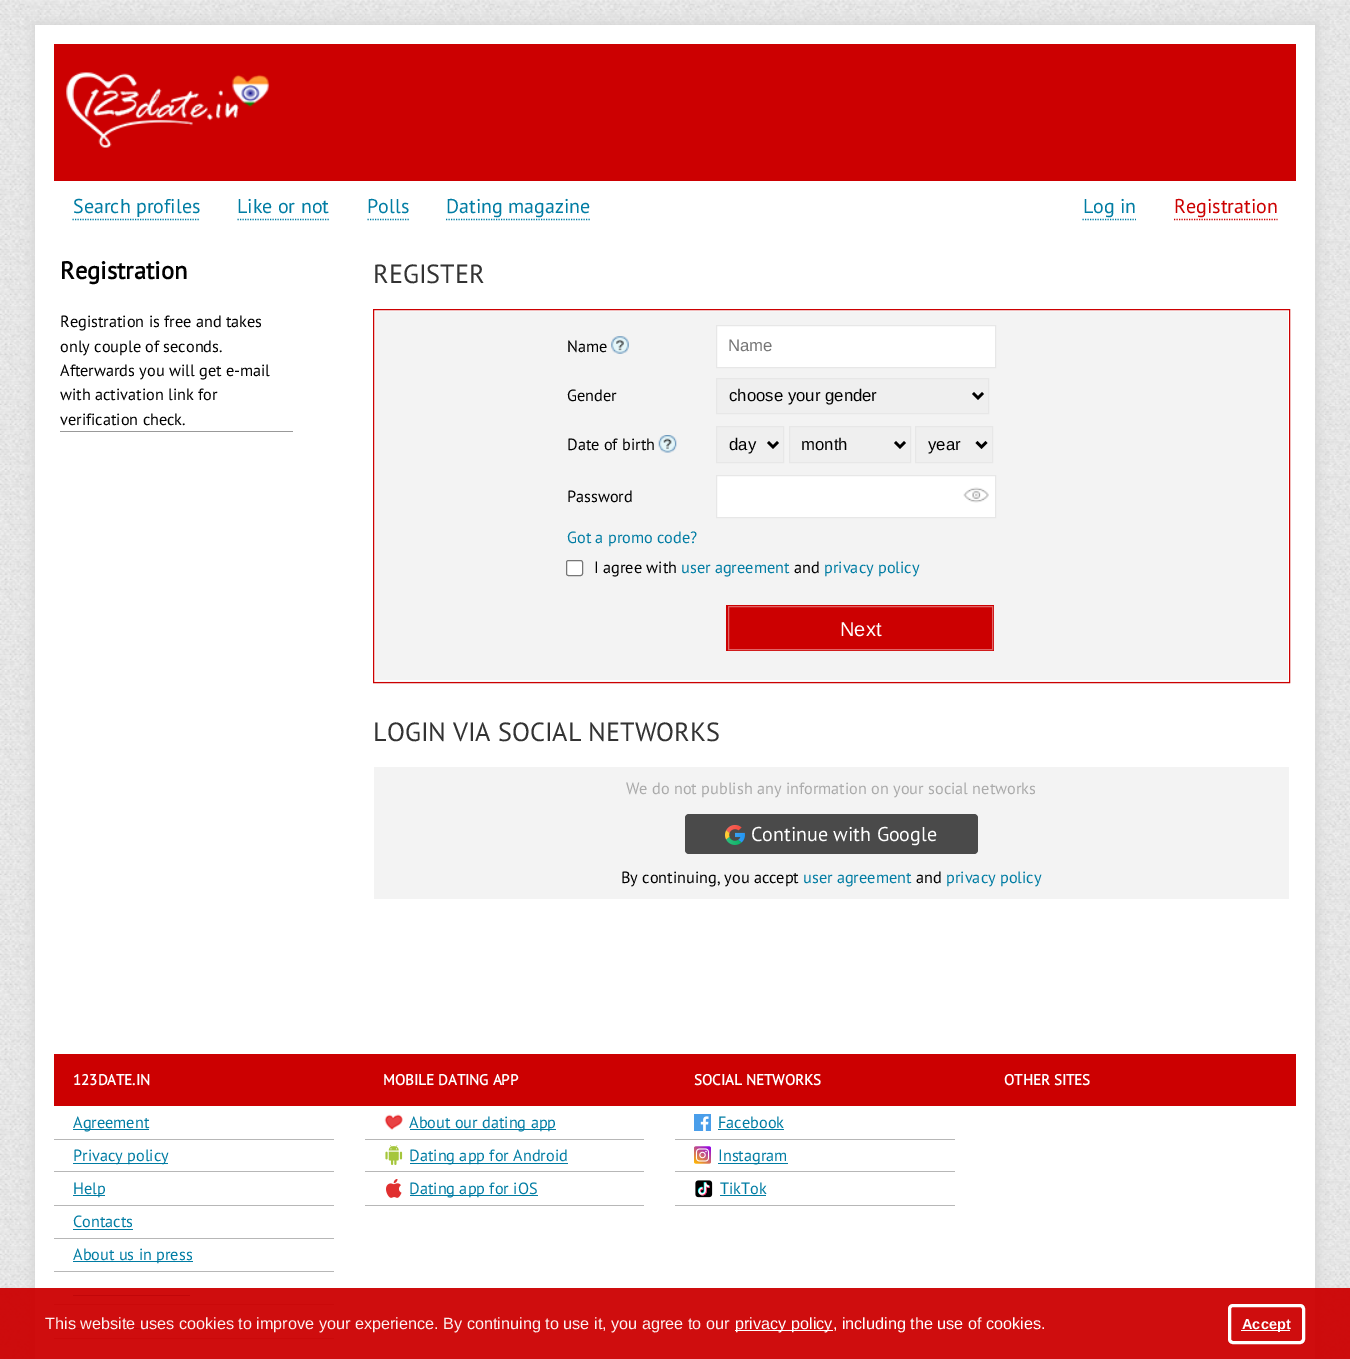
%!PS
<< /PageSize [1350 1359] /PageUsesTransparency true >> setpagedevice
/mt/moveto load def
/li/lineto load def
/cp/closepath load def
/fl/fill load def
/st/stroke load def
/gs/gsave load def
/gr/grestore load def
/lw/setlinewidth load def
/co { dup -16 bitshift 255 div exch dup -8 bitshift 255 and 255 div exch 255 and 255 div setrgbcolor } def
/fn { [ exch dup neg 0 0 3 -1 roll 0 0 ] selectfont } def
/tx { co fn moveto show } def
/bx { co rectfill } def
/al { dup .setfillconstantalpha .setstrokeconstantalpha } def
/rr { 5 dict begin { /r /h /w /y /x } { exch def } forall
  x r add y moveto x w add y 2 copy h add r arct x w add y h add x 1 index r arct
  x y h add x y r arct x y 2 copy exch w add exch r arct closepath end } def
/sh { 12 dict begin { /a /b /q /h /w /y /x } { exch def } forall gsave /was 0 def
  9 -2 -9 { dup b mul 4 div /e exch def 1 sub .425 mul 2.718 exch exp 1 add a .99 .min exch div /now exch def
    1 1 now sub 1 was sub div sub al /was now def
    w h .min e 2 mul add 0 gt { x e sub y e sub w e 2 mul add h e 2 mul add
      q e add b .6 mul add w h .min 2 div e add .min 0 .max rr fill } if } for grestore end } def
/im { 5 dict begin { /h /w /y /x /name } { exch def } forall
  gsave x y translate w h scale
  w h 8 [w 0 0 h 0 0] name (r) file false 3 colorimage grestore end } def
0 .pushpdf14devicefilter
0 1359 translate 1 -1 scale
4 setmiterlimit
0 0 1350 1359 16#FFFFFF bx
(media/1.raw) 0 0 1350 1359 im
16#D5D5D5 co
33 23 1285 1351 0 5 1 sh
35 25 1280 1334 16#FFFFFF bx
54 44 1242 137 16#CC0001 bx
(media/2.raw) 66 72 204 76 im
16#007CA3 co
1.2 lw
[1.25 1.25] 0 setdash
72.5 219.5 mt 200 219.5 li st
237.5 219.5 mt 330 219.5 li st
367.5 219.5 mt 409 219.5 li st
446 219.5 mt 591 219.5 li st
1082.5 219.5 mt 1136 219.5 li st
16#CC0000 co
1174 219.5 mt 1277.5 219.5 li st
60 431 233 1 16#999999 bx
374 311 915 371 16#F3F3F3 bx
16#FFFFFF co
1 lw
[] 0 setdash
374.5 310.5 914 370 rectstroke
16#CC0001 co
373.5 309.5 916 373 rectstroke
(media/3.raw) 611 336 18 18 im
16#FFFFFF co
716.5 325.5 mt 995.5 325.5 li 995.5 367.5 li 716.5 367.5 li cp gs fl gr
16#E7E7E7 co
st
16#EFEFEF co
716.5 378.5 mt 988.5 378.5 li 988.5 413.5 li 716.5 413.5 li cp gs fl gr
16#E7E7E7 co
st
16#000000 co
2.5 lw
973 393 mt 978 398 li 983 393 li st
(media/4.raw) 658 435 19 18 im
16#EFEFEF co
716.5 426.5 mt 783.5 426.5 li 783.5 462.5 li 716.5 462.5 li cp gs fl gr
16#E7E7E7 co
1 lw
st
16#000000 co
2.5 lw
768 442 mt 773 447 li 778 442 li st
16#EFEFEF co
789.5 426.5 mt 910.5 426.5 li 910.5 462.5 li 789.5 462.5 li cp gs fl gr
16#E7E7E7 co
1 lw
st
16#000000 co
2.5 lw
895 442 mt 900 447 li 905 442 li st
16#EFEFEF co
915.5 426.5 mt 992.5 426.5 li 992.5 462.5 li 915.5 462.5 li cp gs fl gr
16#E7E7E7 co
1 lw
st
16#000000 co
2.5 lw
976.5 442 mt 981.5 447 li 986.5 442 li st
16#FFFFFF co
716.5 475.5 mt 995.5 475.5 li 995.5 517.5 li 716.5 517.5 li cp gs fl gr
16#E7E7E7 co
1 lw
st
(media/5.raw) 963 487 26 16 im
16#FFFFFF co
566.5 560.5 16 15 2 rr gs fl gr
16#767676 co
st
726 605 268 46 16#CC0001 bx
16#E06667 co
728.5 606.5 264 43 rectstroke
374 767 915 132 16#F3F3F3 bx
16#4A4A4A co
685 814 293 40 4 rr fl
(media/6.raw) 725 825 20 20 im
54 1054 1242 52 16#CC0001 bx
54 1139 280 1 16#B7B7B7 bx
73 1129 76 1 16#007CA3 bx
54 1171 280 1 16#B7B7B7 bx
73 1163 95 1 16#007CA3 bx
54 1205 280 1 16#B7B7B7 bx
73 1195 32 1 16#007CA3 bx
54 1238 280 1 16#B7B7B7 bx
73 1229 60 1 16#007CA3 bx
54 1271 280 1 16#B7B7B7 bx
73 1261 120 1 16#007CA3 bx
54 1304 280 1 16#B7B7B7 bx
73 1295 117 1 16#007CA3 bx
54 1338 280 1 16#B7B7B7 bx
73 1328 88 1 16#007CA3 bx
365 1139 279 1 16#B7B7B7 bx
(media/7.raw) 384 1114 19 16 im
410 1129 146 1 16#007CA3 bx
365 1171 279 1 16#B7B7B7 bx
(media/8.raw) 385 1145 18 20 im
410 1163 158 1 16#007CA3 bx
365 1205 279 1 16#B7B7B7 bx
(media/9.raw) 386 1179 16 19 im
410 1195 128 1 16#007CA3 bx
675 1139 280 1 16#B7B7B7 bx
(media/10.raw) 694 1114 17 17 im
718 1129 66 1 16#007CA3 bx
675 1171 280 1 16#B7B7B7 bx
(media/11.raw) 694 1146 17 18 im
718 1163 70 1 16#007CA3 bx
675 1205 280 1 16#B7B7B7 bx
(media/12.raw) 695 1180 18 18 im
720 1195 46 1 16#007CA3 bx
0.95 al
0 1288 1350 71 16#CC0001 bx
1 al
735 1330 98 1 16#FFFFFF bx
3 lw
1229.5 1305.5 74 37 3.5 rr st
1241 1330 49 1 16#FFFFFF bx
(Search profiles) 73 213 /PTSans-Regular 20 16#007CA3 tx
(Like or not) 237 213 /PTSans-Regular 20 16#007CA3 tx
(Polls) 367 213 /PTSans-Regular 20 16#007CA3 tx
(Dating magazine) 446 213 /PTSans-Regular 20 16#007CA3 tx
(Log in) 1083 213 /PTSans-Regular 20 16#007CA3 tx
(Registration) 1174 213 /PTSans-Regular 20 16#CC0000 tx
(Registration) 60 279 /PTSans-Bold 24.5 16#000000 tx
(Registration is free and takes) 60 327 /PTSans-Regular 16.25 16#000000 tx
(only couple of seconds.) 60 352 /PTSans-Regular 16.25 16#000000 tx
(Afterwards you will get e-mail) 60 376 /PTSans-Regular 16.25 16#000000 tx
(with activation link for) 60 400 /PTSans-Regular 16.25 16#000000 tx
(verification check.) 60 425 /PTSans-Regular 16.25 16#000000 tx
(REGISTER) 373 283 /PTSans-Regular 26.25 16#333333 tx
(Name) 567 352 /PTSans-Regular 16.25 16#000000 tx
(Name) 728 351 /LiberationSans-Regular 16.75 16#757575 tx
(Gender) 567 401 /PTSans-Regular 16.25 16#000000 tx
(choose your gender) 729 401 /LiberationSans-Regular 16.75 16#000000 tx
(Date of birth) 567 450 /PTSans-Regular 16.25 16#000000 tx
(day) 729 450 /LiberationSans-Regular 16.75 16#000000 tx
(month) 801 450 /LiberationSans-Regular 16.75 16#000000 tx
(year) 928 450 /LiberationSans-Regular 16.75 16#000000 tx
(Password) 567 502 /PTSans-Regular 16.25 16#000000 tx
(Got a promo code?) 567 543 /PTSans-Regular 16.25 16#007CA3 tx
(I agree with) 594 573 /PTSans-Regular 16.25 16#000000 tx
(user agreement) 681 573 /PTSans-Regular 16.25 16#007CA3 tx
(and) 794 573 /PTSans-Regular 16.25 16#000000 tx
(privacy policy) 824 573 /PTSans-Regular 16.25 16#007CA3 tx
(Next) 840 636 /LiberationSans-Regular 20 16#FFFFFF tx
(LOGIN VIA SOCIAL NETWORKS) 373 741 /PTSans-Regular 26.25 16#333333 tx
(We do not publish any information on your social networks) 626 794 /PTSans-Regular 16.25 16#AAAAAA tx
(Continue with Google) 751 841 /PTSans-Regular 20 16#FFFFFF tx
(By continuing, you accept) 621 883 /PTSans-Regular 16.25 16#000000 tx
(user agreement) 803 883 /PTSans-Regular 16.25 16#007CA3 tx
(and) 916 883 /PTSans-Regular 16.25 16#000000 tx
(privacy policy) 946 883 /PTSans-Regular 16.25 16#007CA3 tx
(123DATE.IN) 73 1085 /PTSans-Bold 15 16#FFFFFF tx
(MOBILE DATING APP) 383 1085 /PTSans-Bold 15 16#FFFFFF tx
(SOCIAL NETWORKS) 694 1085 /PTSans-Bold 15 16#FFFFFF tx
(OTHER SITES) 1004 1085 /PTSans-Bold 15 16#FFFFFF tx
(Agreement) 73 1128 /PTSans-Regular 16.25 16#007CA3 tx
(Privacy policy) 73 1161 /PTSans-Regular 16.25 16#007CA3 tx
(Help) 73 1194 /PTSans-Regular 16.25 16#007CA3 tx
(Contacts) 73 1227 /PTSans-Regular 16.25 16#007CA3 tx
(About us in press) 73 1260 /PTSans-Regular 16.25 16#007CA3 tx
(About our dating app) 409 1128 /PTSans-Regular 16.25 16#007CA3 tx
(Dating app for Android) 409 1161 /PTSans-Regular 16.25 16#007CA3 tx
(Dating app for iOS) 409 1194 /PTSans-Regular 16.25 16#007CA3 tx
(Facebook) 718 1128 /PTSans-Regular 16.25 16#007CA3 tx
(Instagram) 718 1161 /PTSans-Regular 16.25 16#007CA3 tx
(TikTok) 720 1194 /PTSans-Regular 16.25 16#007CA3 tx
(This website uses cookies to improve your experience. By continuing to use it, you agree to our) 45 1329 /LiberationSans-Regular 16.25 16#FDF3F3 tx
(privacy policy, including the use of cookies.) 735 1329 /LiberationSans-Regular 16.25 16#FFFFFF tx
(Accept) 1242 1329 /LiberationSans-Bold 14.5 16#FFFFFF tx
.poppdf14devicefilter showpage
